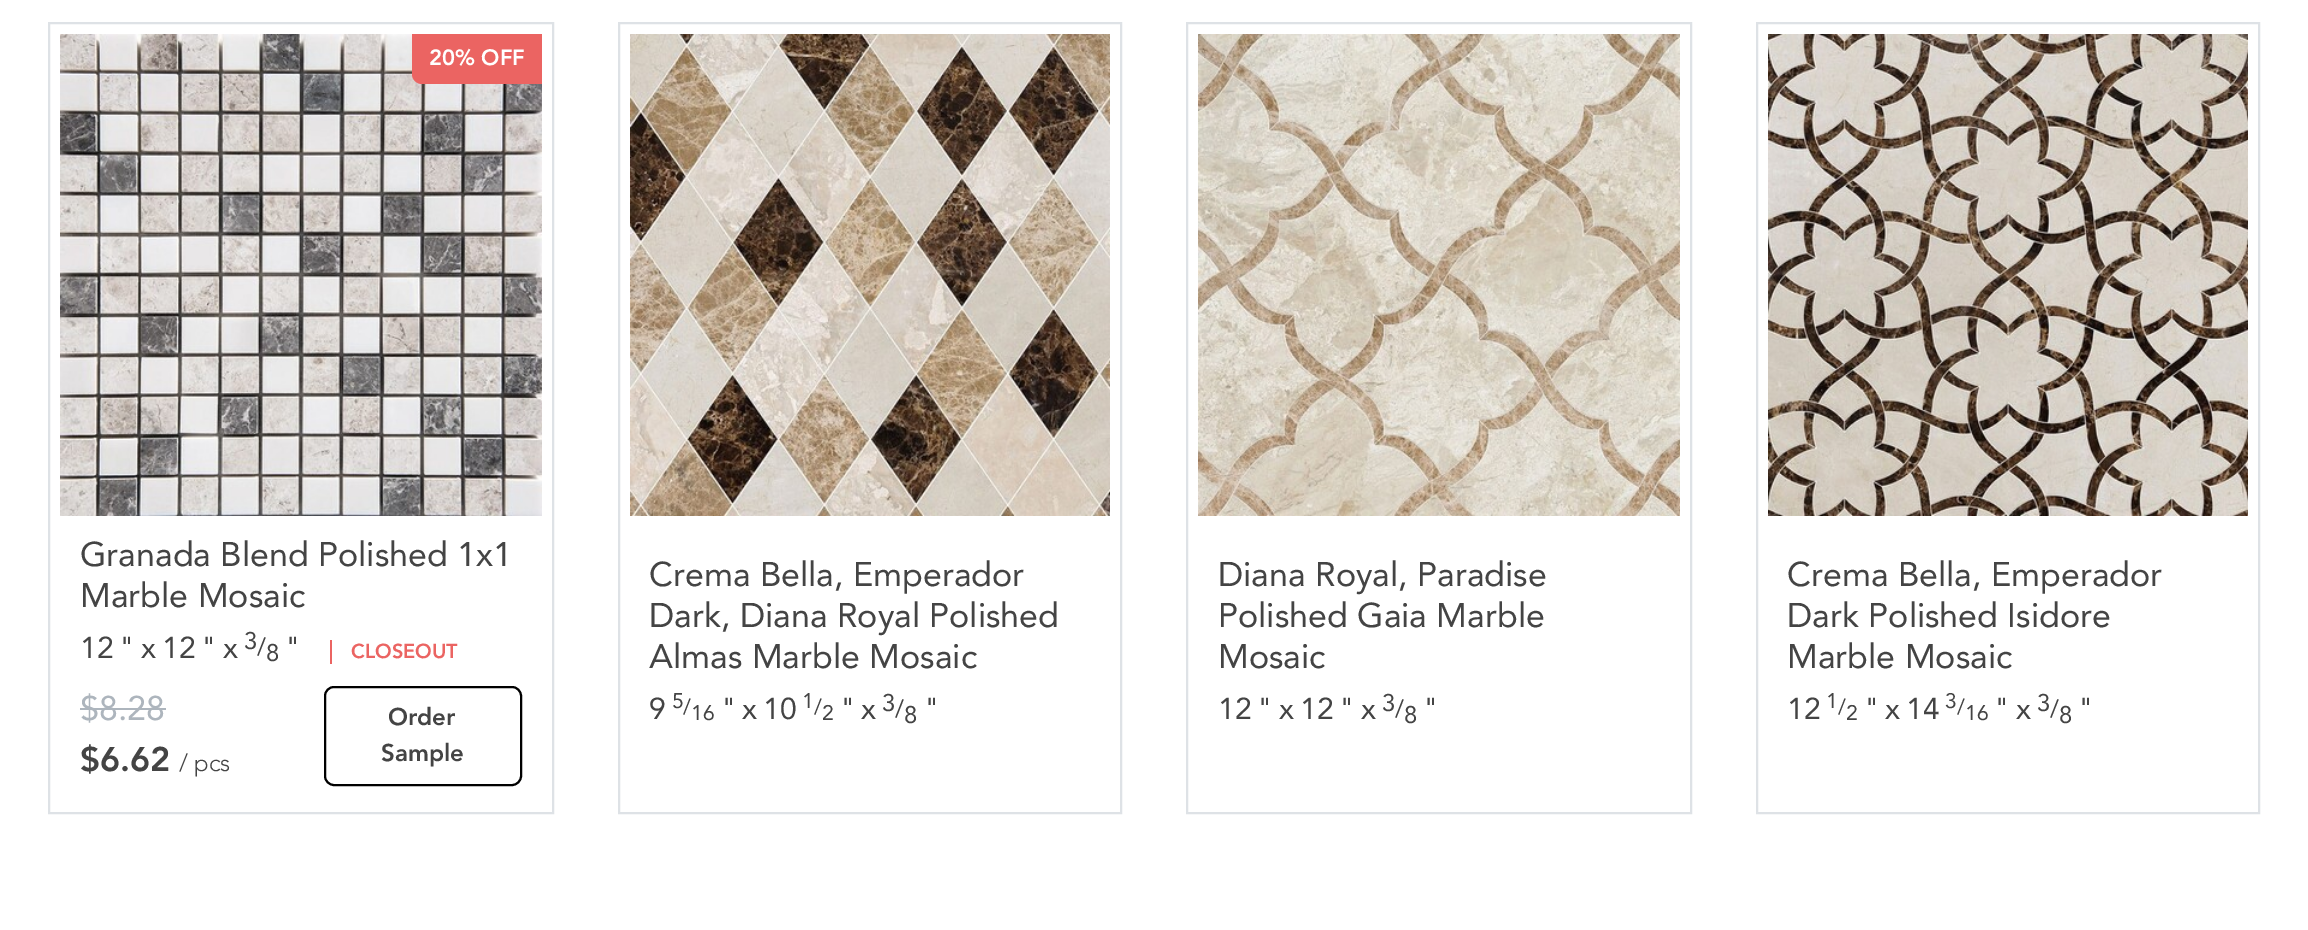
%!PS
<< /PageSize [2308 930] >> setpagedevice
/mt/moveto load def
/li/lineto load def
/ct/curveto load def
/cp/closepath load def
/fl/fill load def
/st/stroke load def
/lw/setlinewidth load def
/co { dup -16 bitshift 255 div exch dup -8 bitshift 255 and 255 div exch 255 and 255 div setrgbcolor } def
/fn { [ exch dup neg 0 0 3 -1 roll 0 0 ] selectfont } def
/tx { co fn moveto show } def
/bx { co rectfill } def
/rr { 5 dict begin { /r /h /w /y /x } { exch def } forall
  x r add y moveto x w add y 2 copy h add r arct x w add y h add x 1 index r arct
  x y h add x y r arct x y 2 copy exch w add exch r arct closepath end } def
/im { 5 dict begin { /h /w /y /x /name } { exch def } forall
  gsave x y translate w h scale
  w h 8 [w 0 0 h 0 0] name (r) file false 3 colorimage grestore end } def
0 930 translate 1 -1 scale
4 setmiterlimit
0 0 2308 930 16#FFFFFF bx
16#DEE2E6 co
2 lw
49 23 504 790 rectstroke
(media/1.raw) 60 34 482 482 im
16#EB6462 co
412 34 mt 542 34 li 542 84 li 422 84 li 416.5 84 412 79.5 412 74 ct cp fl
330 640 2 24 16#EB6462 bx
80 708 86 2 16#ADB5BD bx
16#000000 co
325 687 196 98 9 rr st
16#DEE2E6 co
619 23 502 790 rectstroke
(media/2.raw) 630 34 480 482 im
1187 23 504 790 rectstroke
(media/3.raw) 1198 34 482 482 im
1757 23 502 790 rectstroke
(media/4.raw) 1768 34 480 482 im
(20% OFF) 429 65 /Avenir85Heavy-Black 22 16#FFFFFF tx
(Granada Blend Polished 1x1) 80 566 /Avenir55-Regular 34 16#444444 tx
(Marble Mosaic) 80 607 /Avenir55-Regular 34 16#444444 tx
(12) 80 658 /Avenir55-Regular 30 16#444444 tx
(") 119 658 /Avenir55-Regular 30 16#444444 tx
(12) 162 658 /Avenir55-Regular 30 16#444444 tx
(") 201 658 /Avenir55-Regular 30 16#444444 tx
(3) 244 649 /Avenir55-Regular 24 16#444444 tx
(/) 257 655 /Avenir55-Regular 24 16#444444 tx
(8) 266 661 /Avenir55-Regular 24 16#444444 tx
(") 285 658 /Avenir55-Regular 30 16#444444 tx
(x) 141 658 /Avenir55-Regular 30 16#444444 tx
(x) 223 658 /Avenir55-Regular 30 16#444444 tx
(CLOSEOUT) 351 658 /Avenir85Heavy-Black 20 16#EB6462 tx
($8.28) 80 720 /Avenir55-Regular 34 16#ADB5BD tx
($6.62) 80 771 /Avenir85Heavy-Black 34 16#444444 tx
(/ pcs) 179 771 /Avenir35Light-Light 24 16#444444 tx
(Order) 388 725 /Avenir85Heavy-Black 24 16#444444 tx
(Sample) 381 761 /Avenir85Heavy-Black 24 16#444444 tx
(Crema Bella, Emperador) 649 586 /Avenir55-Regular 34 16#444444 tx
(Dark, Diana Royal Polished) 649 627 /Avenir55-Regular 34 16#444444 tx
(Almas Marble Mosaic) 649 668 /Avenir55-Regular 34 16#444444 tx
(9) 649 719 /Avenir55-Regular 30 16#444444 tx
(5) 672 708 /Avenir55-Regular 21 16#444444 tx
(/) 683 714 /Avenir55-Regular 21 16#444444 tx
(16) 691 720 /Avenir55-Regular 21 16#444444 tx
(") 721 719 /Avenir55-Regular 30 16#444444 tx
(10) 763 719 /Avenir55-Regular 30 16#444444 tx
(1) 802 708 /Avenir55-Regular 21 16#444444 tx
(/) 814 714 /Avenir55-Regular 21 16#444444 tx
(2) 822 720 /Avenir55-Regular 21 16#444444 tx
(") 840 719 /Avenir55-Regular 30 16#444444 tx
(3) 882 711 /Avenir55-Regular 24 16#444444 tx
(/) 895 717 /Avenir55-Regular 24 16#444444 tx
(8) 904 723 /Avenir55-Regular 24 16#444444 tx
(") 924 719 /Avenir55-Regular 30 16#444444 tx
(x) 742 719 /Avenir55-Regular 30 16#444444 tx
(x) 861 719 /Avenir55-Regular 30 16#444444 tx
(Diana Royal, Paradise) 1218 586 /Avenir55-Regular 34 16#444444 tx
(Polished Gaia Marble) 1218 627 /Avenir55-Regular 34 16#444444 tx
(Mosaic) 1218 668 /Avenir55-Regular 34 16#444444 tx
(12) 1218 719 /Avenir55-Regular 30 16#444444 tx
(") 1257 719 /Avenir55-Regular 30 16#444444 tx
(12) 1300 719 /Avenir55-Regular 30 16#444444 tx
(") 1339 719 /Avenir55-Regular 30 16#444444 tx
(3) 1382 711 /Avenir55-Regular 24 16#444444 tx
(/) 1395 717 /Avenir55-Regular 24 16#444444 tx
(8) 1404 723 /Avenir55-Regular 24 16#444444 tx
(") 1423 719 /Avenir55-Regular 30 16#444444 tx
(x) 1279 719 /Avenir55-Regular 30 16#444444 tx
(x) 1361 719 /Avenir55-Regular 30 16#444444 tx
(Crema Bella, Emperador) 1787 586 /Avenir55-Regular 34 16#444444 tx
(Dark Polished Isidore) 1787 627 /Avenir55-Regular 34 16#444444 tx
(Marble Mosaic) 1787 668 /Avenir55-Regular 34 16#444444 tx
(12) 1787 719 /Avenir55-Regular 30 16#444444 tx
(1) 1826 708 /Avenir55-Regular 21 16#444444 tx
(/) 1838 714 /Avenir55-Regular 21 16#444444 tx
(2) 1846 720 /Avenir55-Regular 21 16#444444 tx
(") 1864 719 /Avenir55-Regular 30 16#444444 tx
(14) 1906 719 /Avenir55-Regular 30 16#444444 tx
(3) 1945 708 /Avenir55-Regular 21 16#444444 tx
(/) 1957 714 /Avenir55-Regular 21 16#444444 tx
(16) 1965 720 /Avenir55-Regular 21 16#444444 tx
(") 1994 719 /Avenir55-Regular 30 16#444444 tx
(3) 2037 711 /Avenir55-Regular 24 16#444444 tx
(/) 2050 717 /Avenir55-Regular 24 16#444444 tx
(8) 2059 723 /Avenir55-Regular 24 16#444444 tx
(") 2078 719 /Avenir55-Regular 30 16#444444 tx
(x) 1885 719 /Avenir55-Regular 30 16#444444 tx
(x) 2016 719 /Avenir55-Regular 30 16#444444 tx
showpage
